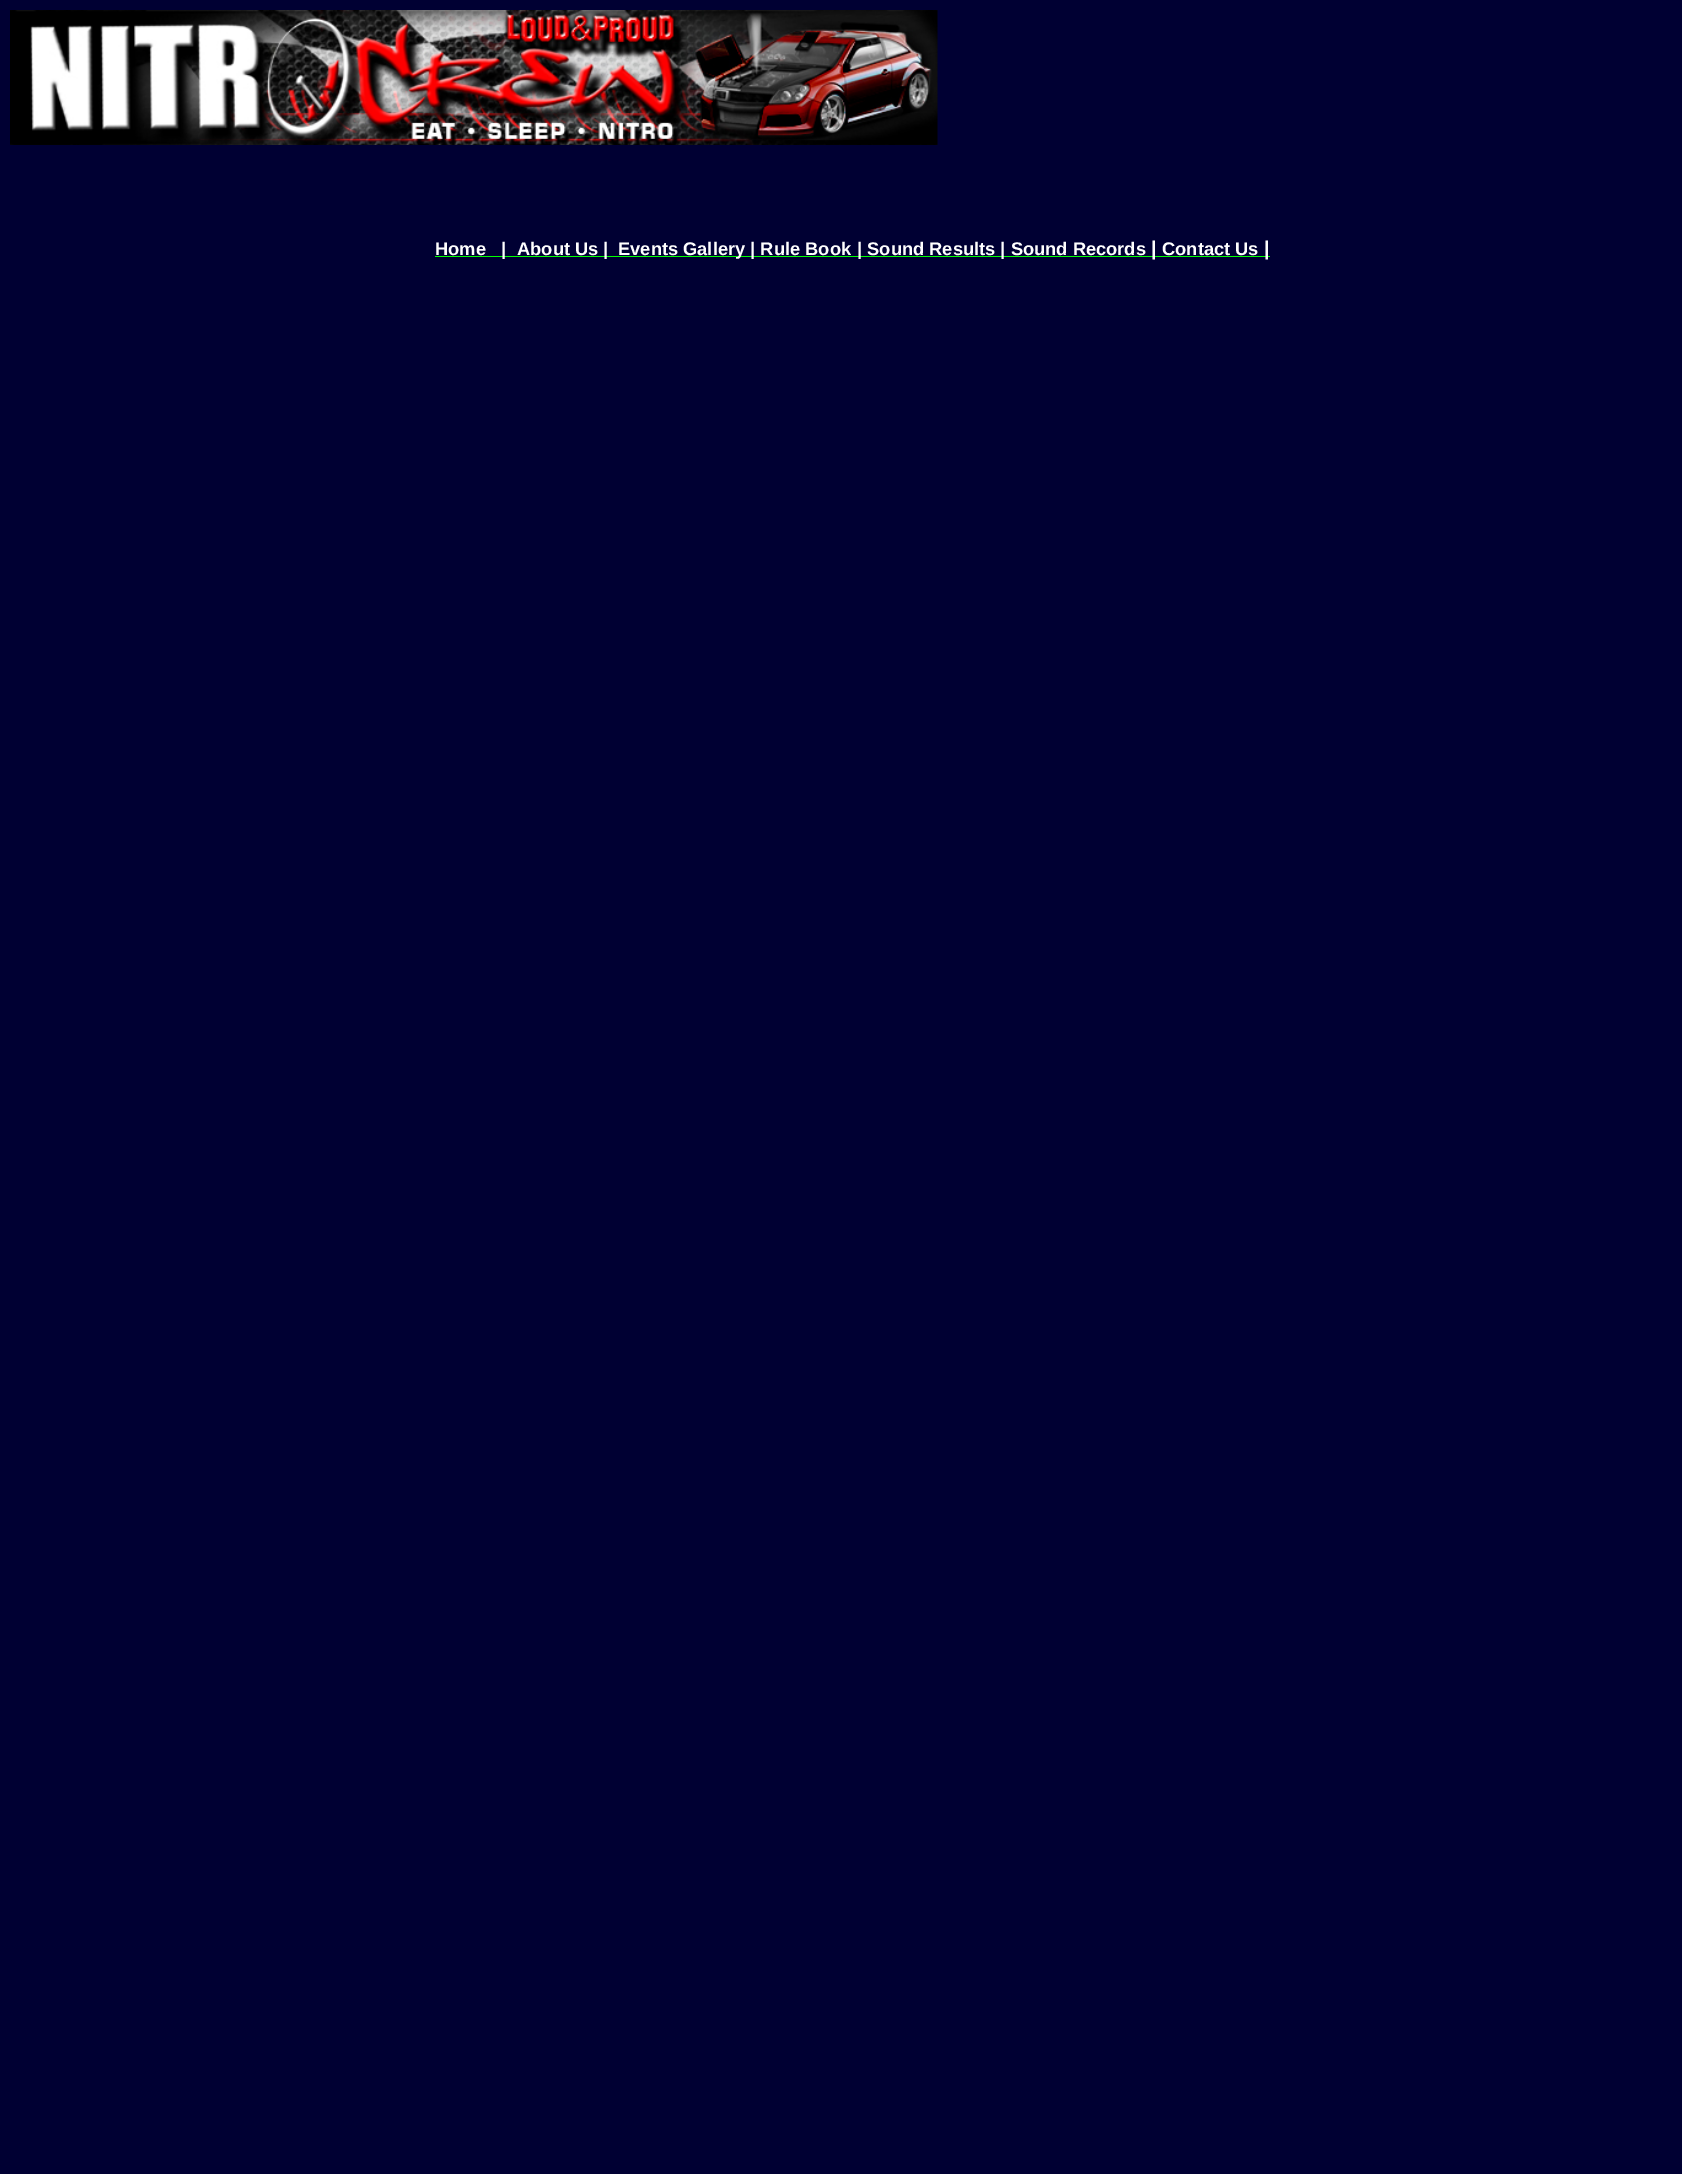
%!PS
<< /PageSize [1682 2174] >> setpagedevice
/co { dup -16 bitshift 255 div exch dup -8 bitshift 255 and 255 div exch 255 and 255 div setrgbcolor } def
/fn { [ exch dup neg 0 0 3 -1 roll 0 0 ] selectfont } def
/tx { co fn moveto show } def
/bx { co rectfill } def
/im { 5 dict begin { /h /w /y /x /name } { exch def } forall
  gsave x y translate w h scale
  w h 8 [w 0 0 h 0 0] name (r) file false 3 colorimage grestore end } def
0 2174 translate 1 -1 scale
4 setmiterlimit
0 0 1682 2174 16#000033 bx
(media/1.raw) 10 10 928 135 im
435 256 416 1 16#00FF00 bx
(Home) 435 255 /LiberationSans-Bold 18.3 16#FFFFFF tx
(|) 501 255 /LiberationSans-Bold 18.3 16#FFFFFF tx
(About Us |) 517 255 /LiberationSans-Bold 18.3 16#FFFFFF tx
(Events Gallery | Rule Book) 618 255 /LiberationSans-Bold 18.3 16#FFFFFF tx
851 256 419 1 16#00FF00 bx
(| Sound Results | Sound Records) 857 255 /LiberationSans-Bold 18.3 16#FFFFFF tx
(|) 1151 255 /LiberationSans-Bold 20 16#FFFFFF tx
(Contact Us) 1162 255 /LiberationSans-Bold 18.3 16#FFFFFF tx
(|) 1264 255 /LiberationSans-Bold 20 16#FFFFFF tx
showpage
